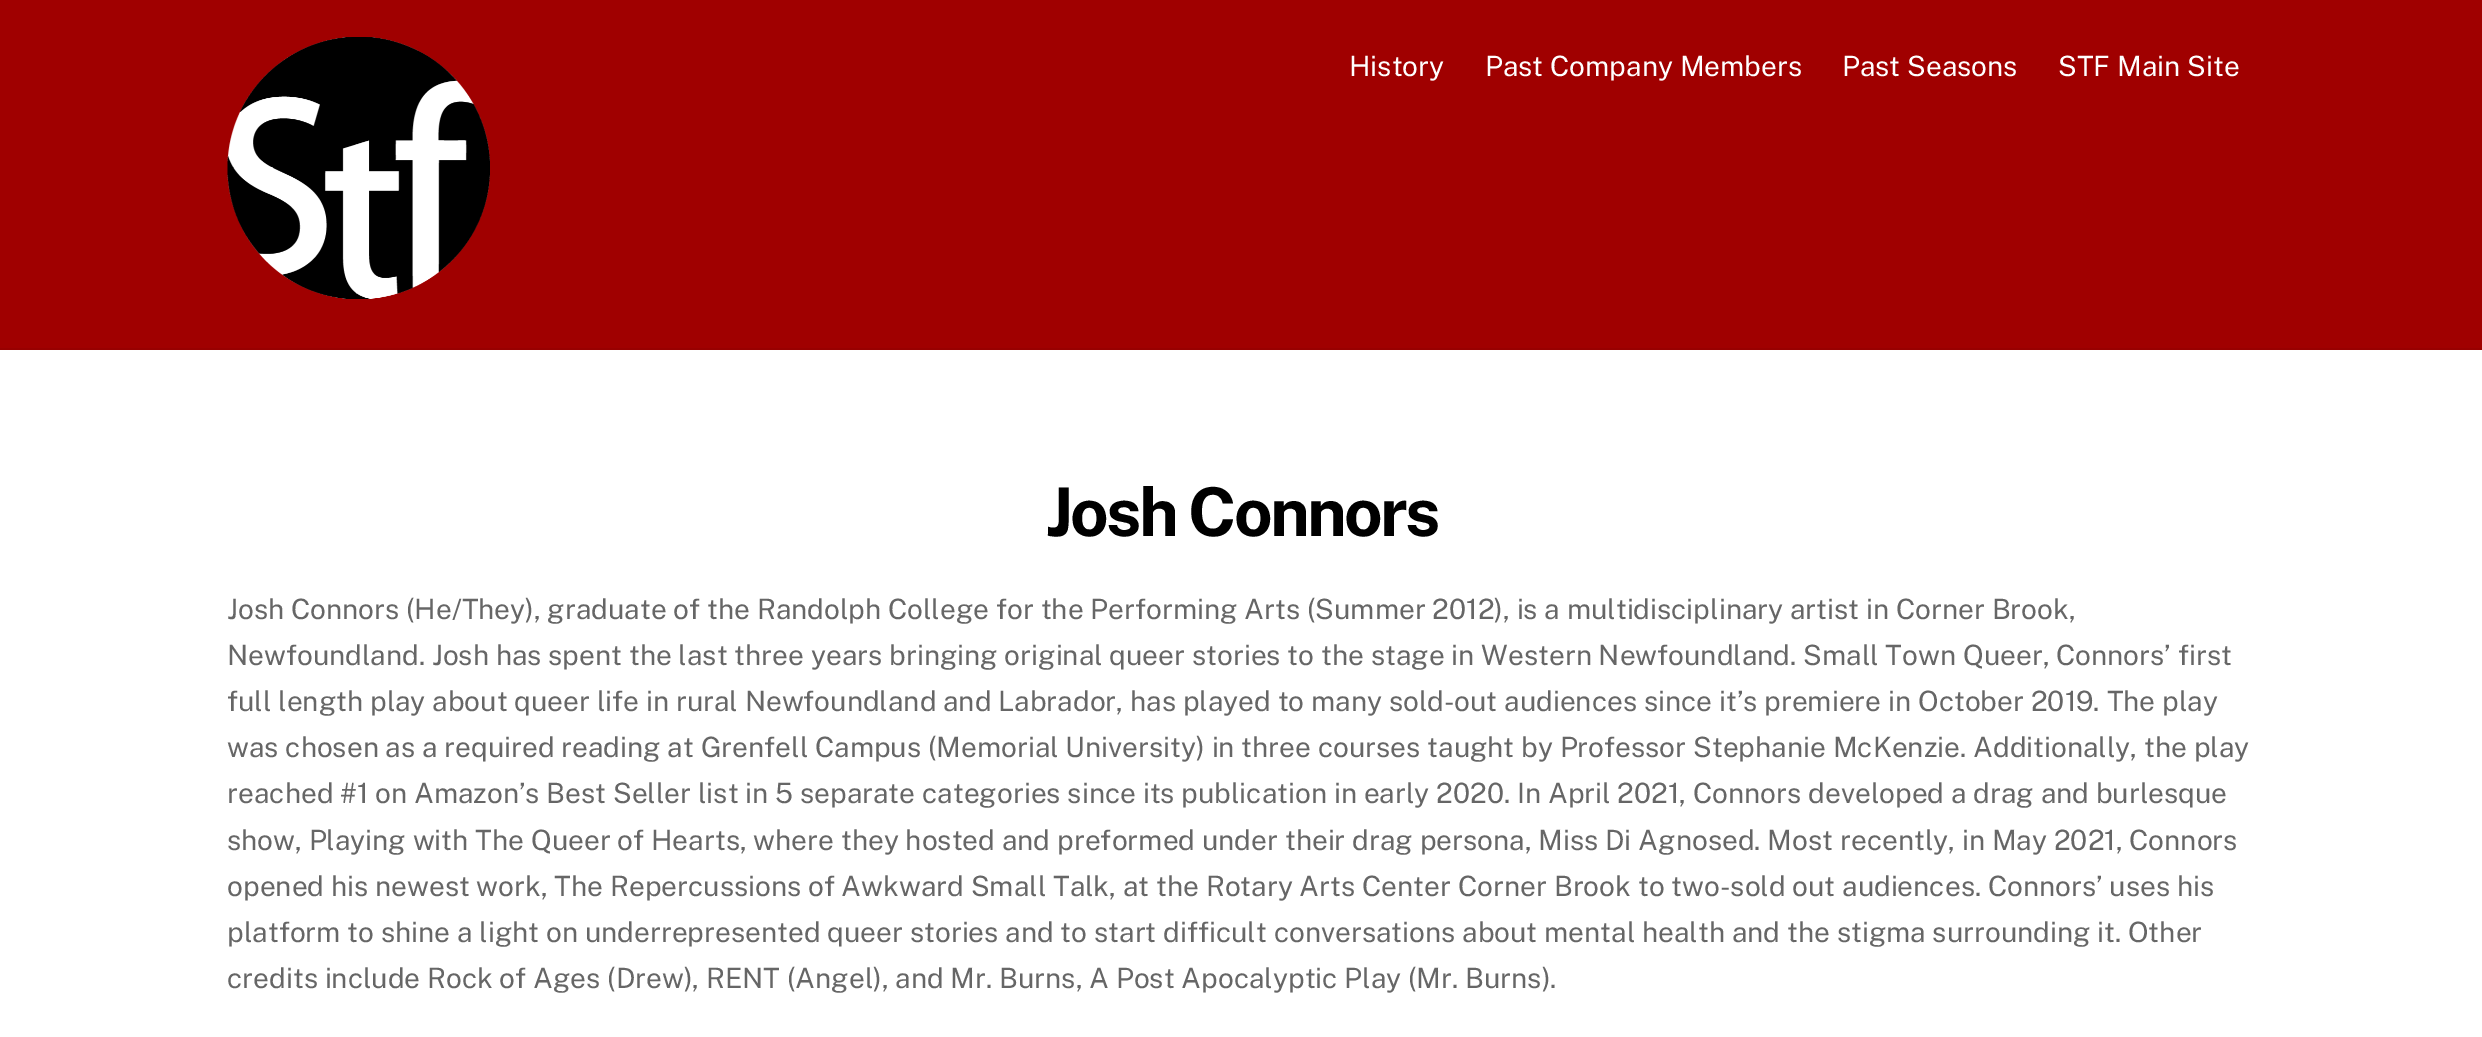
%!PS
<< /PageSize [2482 1037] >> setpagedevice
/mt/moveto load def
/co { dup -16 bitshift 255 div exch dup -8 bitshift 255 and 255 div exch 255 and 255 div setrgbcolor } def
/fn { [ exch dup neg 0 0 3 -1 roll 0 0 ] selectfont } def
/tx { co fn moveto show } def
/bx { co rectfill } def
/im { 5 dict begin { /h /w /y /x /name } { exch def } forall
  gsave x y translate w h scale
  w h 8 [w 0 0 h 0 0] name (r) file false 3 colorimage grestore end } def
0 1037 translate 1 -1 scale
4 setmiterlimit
0 0 2482 1037 16#FFFFFF bx
0 0 2482 348 16#A00000 bx
0 348 2482 2 16#980000 bx
(media/1.raw) 227 37 263 262 im
(History) 1349 76 /PublicSans-Regular 28 16#FFFFFF tx
(Past Company Members) 1485 76 /PublicSans-Regular 28 16#FFFFFF tx
(Past Seasons) 1842 76 /PublicSans-Regular 28 16#FFFFFF tx
(STF Main Site) 2058 76 /PublicSans-Regular 28 16#FFFFFF tx
/PublicSans-Bold 67.25 fn
16#000000 co
1046 536 mt -2.75 0 (Josh Connors) ashow
(Josh Connors \(He/They\), graduate of the Randolph College for the Performing Arts \(Summer 2012\), is a multidisciplinary artist in Corner Brook,) 227 619 /PublicSans-Regular 28 16#666666 tx
(Newfoundland. Josh has spent the last three years bringing original queer stories to the stage in Western Newfoundland. Small Town Queer, Connors’ first) 227 665 /PublicSans-Regular 28 16#666666 tx
(full length play about queer life in rural Newfoundland and Labrador, has played to many sold-out audiences since it’s premiere in October 2019. The play) 227 711 /PublicSans-Regular 28 16#666666 tx
(was chosen as a required reading at Grenfell Campus \(Memorial University\) in three courses taught by Professor Stephanie McKenzie. Additionally, the play) 227 757 /PublicSans-Regular 28 16#666666 tx
(reached #1 on Amazon’s Best Seller list in 5 separate categories since its publication in early 2020. In April 2021, Connors developed a drag and burlesque) 227 803 /PublicSans-Regular 28 16#666666 tx
(show, Playing with The Queer of Hearts, where they hosted and preformed under their drag persona, Miss Di Agnosed. Most recently, in May 2021, Connors) 227 850 /PublicSans-Regular 28 16#666666 tx
(opened his newest work, The Repercussions of Awkward Small Talk, at the Rotary Arts Center Corner Brook to two-sold out audiences. Connors’ uses his) 227 896 /PublicSans-Regular 28 16#666666 tx
(platform to shine a light on underrepresented queer stories and to start difficult conversations about mental health and the stigma surrounding it. Other) 227 942 /PublicSans-Regular 28 16#666666 tx
(credits include Rock of Ages \(Drew\), RENT \(Angel\), and Mr. Burns, A Post Apocalyptic Play \(Mr. Burns\).) 227 988 /PublicSans-Regular 28 16#666666 tx
showpage
